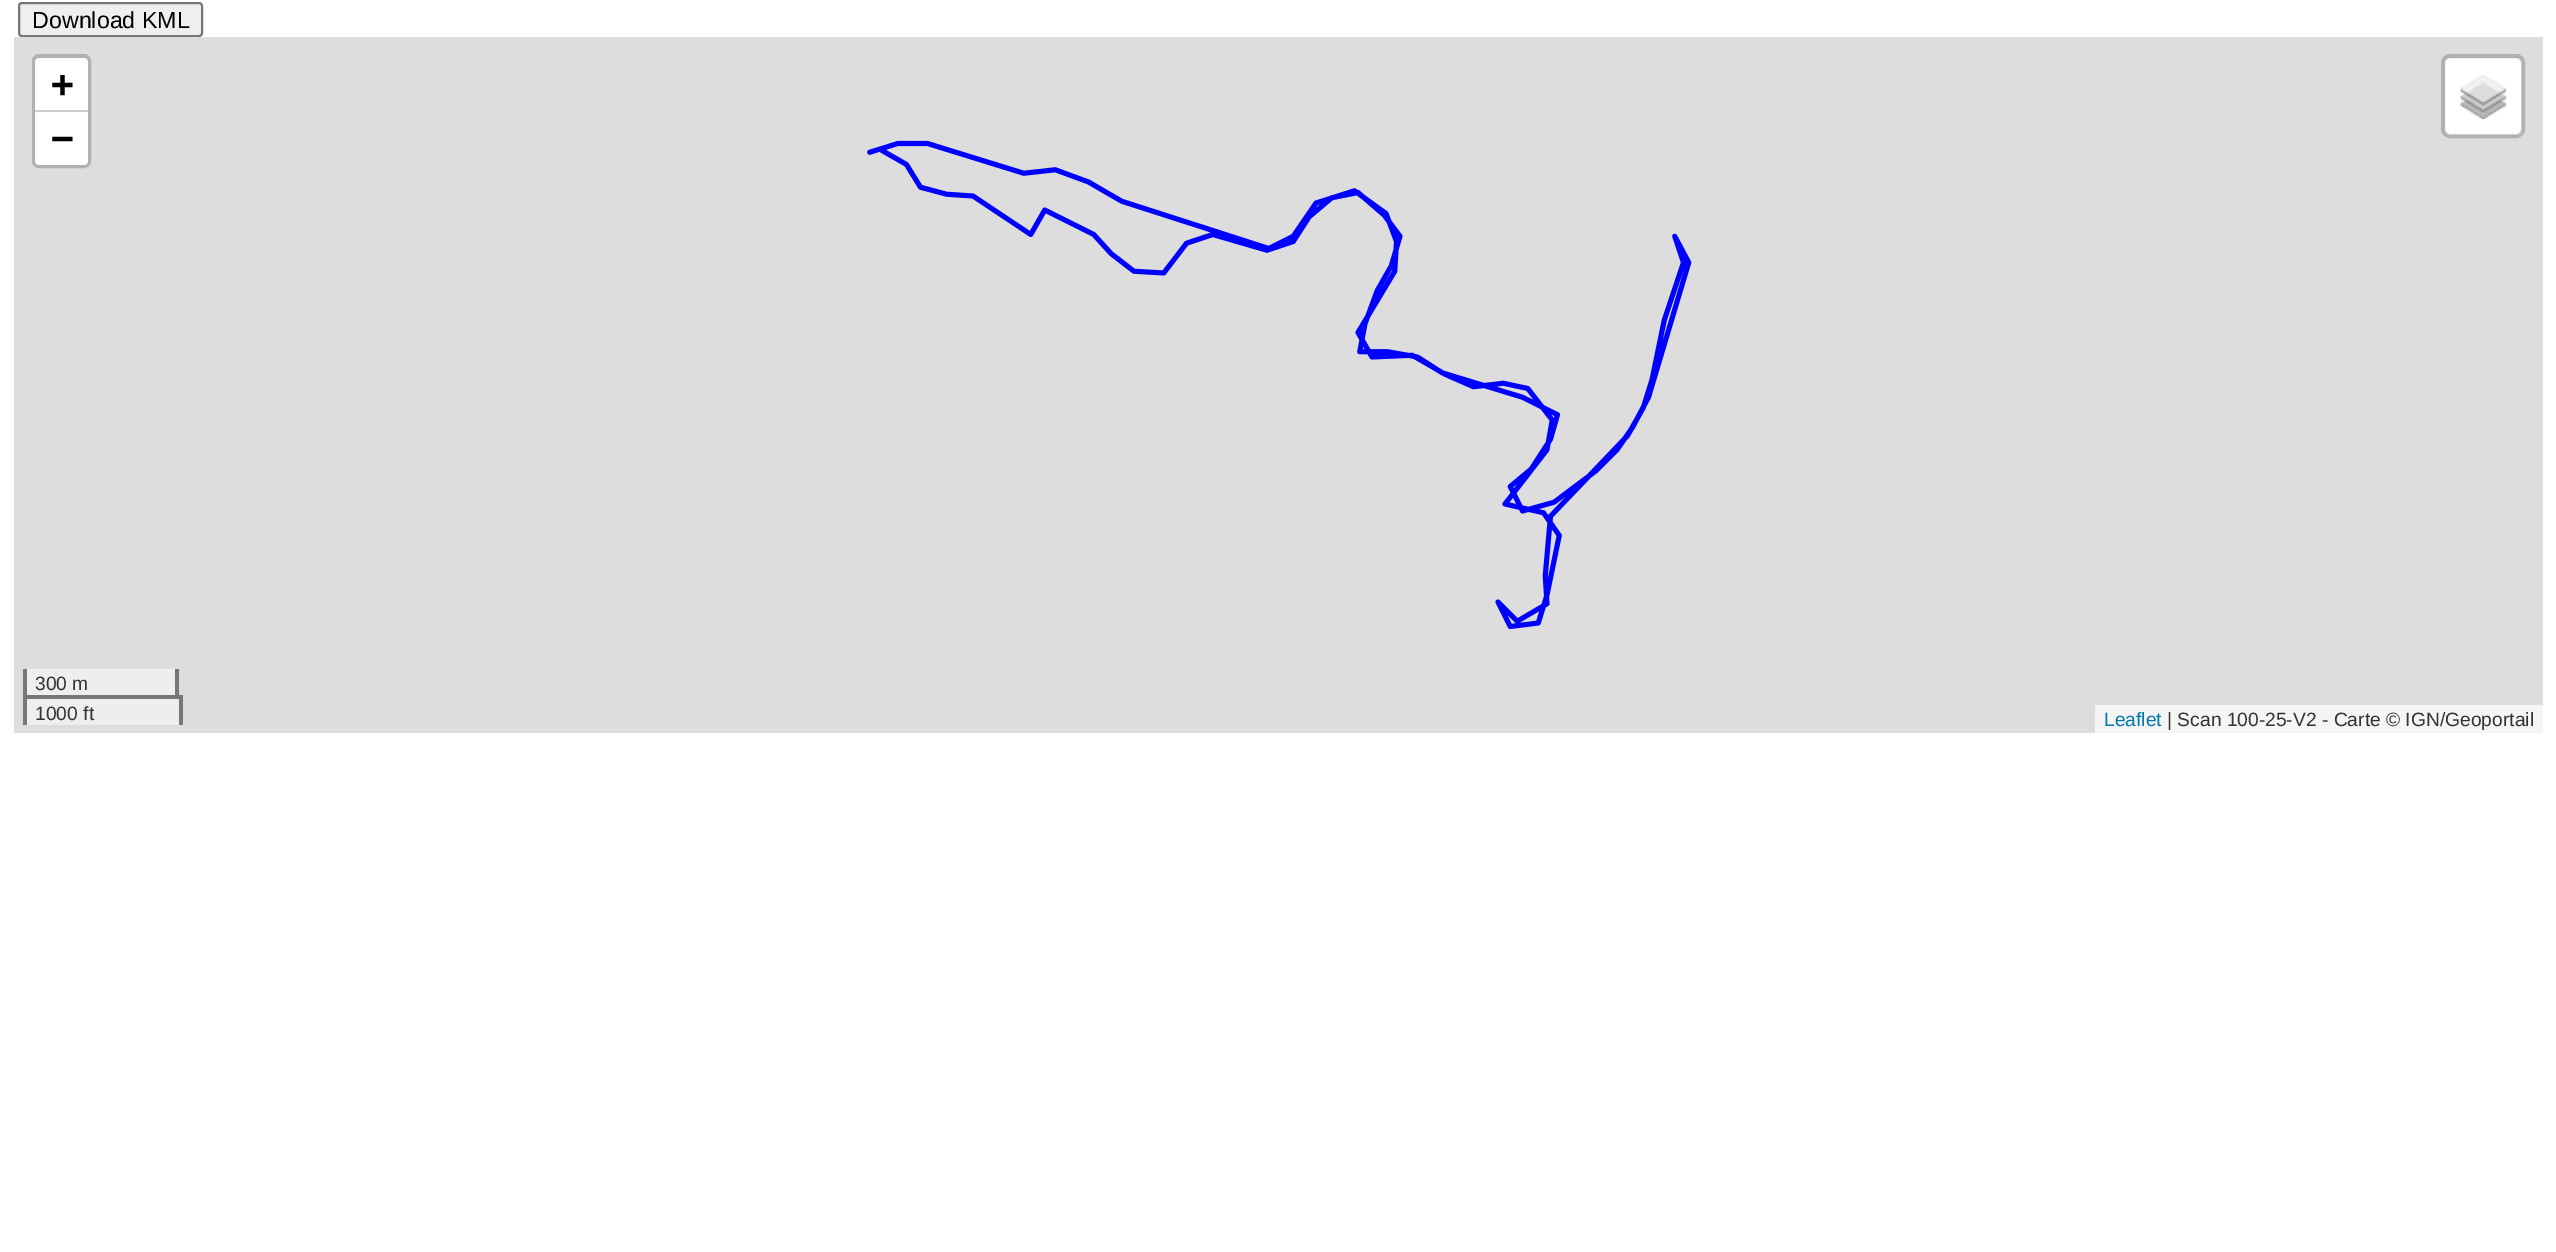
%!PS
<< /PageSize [2556 1252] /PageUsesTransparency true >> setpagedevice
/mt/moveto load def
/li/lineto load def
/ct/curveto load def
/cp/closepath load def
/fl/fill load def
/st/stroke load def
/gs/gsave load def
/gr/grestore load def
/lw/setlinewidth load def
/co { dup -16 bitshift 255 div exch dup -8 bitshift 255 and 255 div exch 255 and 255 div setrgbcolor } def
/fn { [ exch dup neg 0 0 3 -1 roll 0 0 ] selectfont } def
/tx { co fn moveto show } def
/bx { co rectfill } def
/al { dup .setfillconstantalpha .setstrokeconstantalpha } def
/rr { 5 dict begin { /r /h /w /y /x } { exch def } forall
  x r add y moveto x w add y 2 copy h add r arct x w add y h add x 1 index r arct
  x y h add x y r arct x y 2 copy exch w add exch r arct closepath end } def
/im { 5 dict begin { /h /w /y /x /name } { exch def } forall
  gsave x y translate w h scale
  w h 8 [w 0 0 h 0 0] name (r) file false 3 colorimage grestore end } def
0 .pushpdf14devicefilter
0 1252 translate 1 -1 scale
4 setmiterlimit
0 0 2556 1252 16#FFFFFF bx
16#EFEFEF co
19 3 183 33 3 rr gs fl gr
16#767676 co
2 lw
st
14 37 2529 696 16#DDDDDD bx
27 699 152 26 16#EEEEEE bx
16#B1B1B1 co
4 lw
34 56 55 110 5 rr st
16#FFFFFF co
39 58 mt 84 58 li 86 58 88 60 88 62 ct 88 112 li 35 112 li 35 62 li 35 60 37 58 39 58 ct cp fl
35 110 53 2 16#CCCCCC bx
16#FFFFFF co
35 112 mt 88 112 li 88 161 li 88 163 86 165 84 165 ct 39 165 li 37 165 35 163 35 161 ct cp fl
2445 58 77 77 5 rr fl
0.2 al
16#000000 co
2443 56 80 80 7 rr st
1 al
(media/1.raw) 2460 75 46 44 im
27 669 148 26 16#EEEEEE bx
175 669 4 29 16#777777 bx
23 669 4 29 16#777777 bx
23 695 159 4 16#777777 bx
179 695 4 30 16#777777 bx
23 695 4 30 16#777777 bx
2095 705 448 28 16#F5F5F5 bx
(media/2.raw) 867 140 825 490 im
(Download KML) 32 28 /LiberationSans-Regular 23.25 16#000000 tx
(+) 51 97 /DejaVuSansMono-Bold 38 16#000000 tx
(−) 51 151 /DejaVuSansMono-Bold 38 16#000000 tx
(300 m) 35 690 /LiberationSans-Regular 19.25 16#333333 tx
(1000 ft) 35 720 /LiberationSans-Regular 19.25 16#333333 tx
(Leaflet) 2104 726 /LiberationSans-Regular 19.25 16#0078A8 tx
(| Scan 100-25-V2 - Carte © IGN/Geoportail) 2167 726 /LiberationSans-Regular 19.25 16#333333 tx
.poppdf14devicefilter showpage
